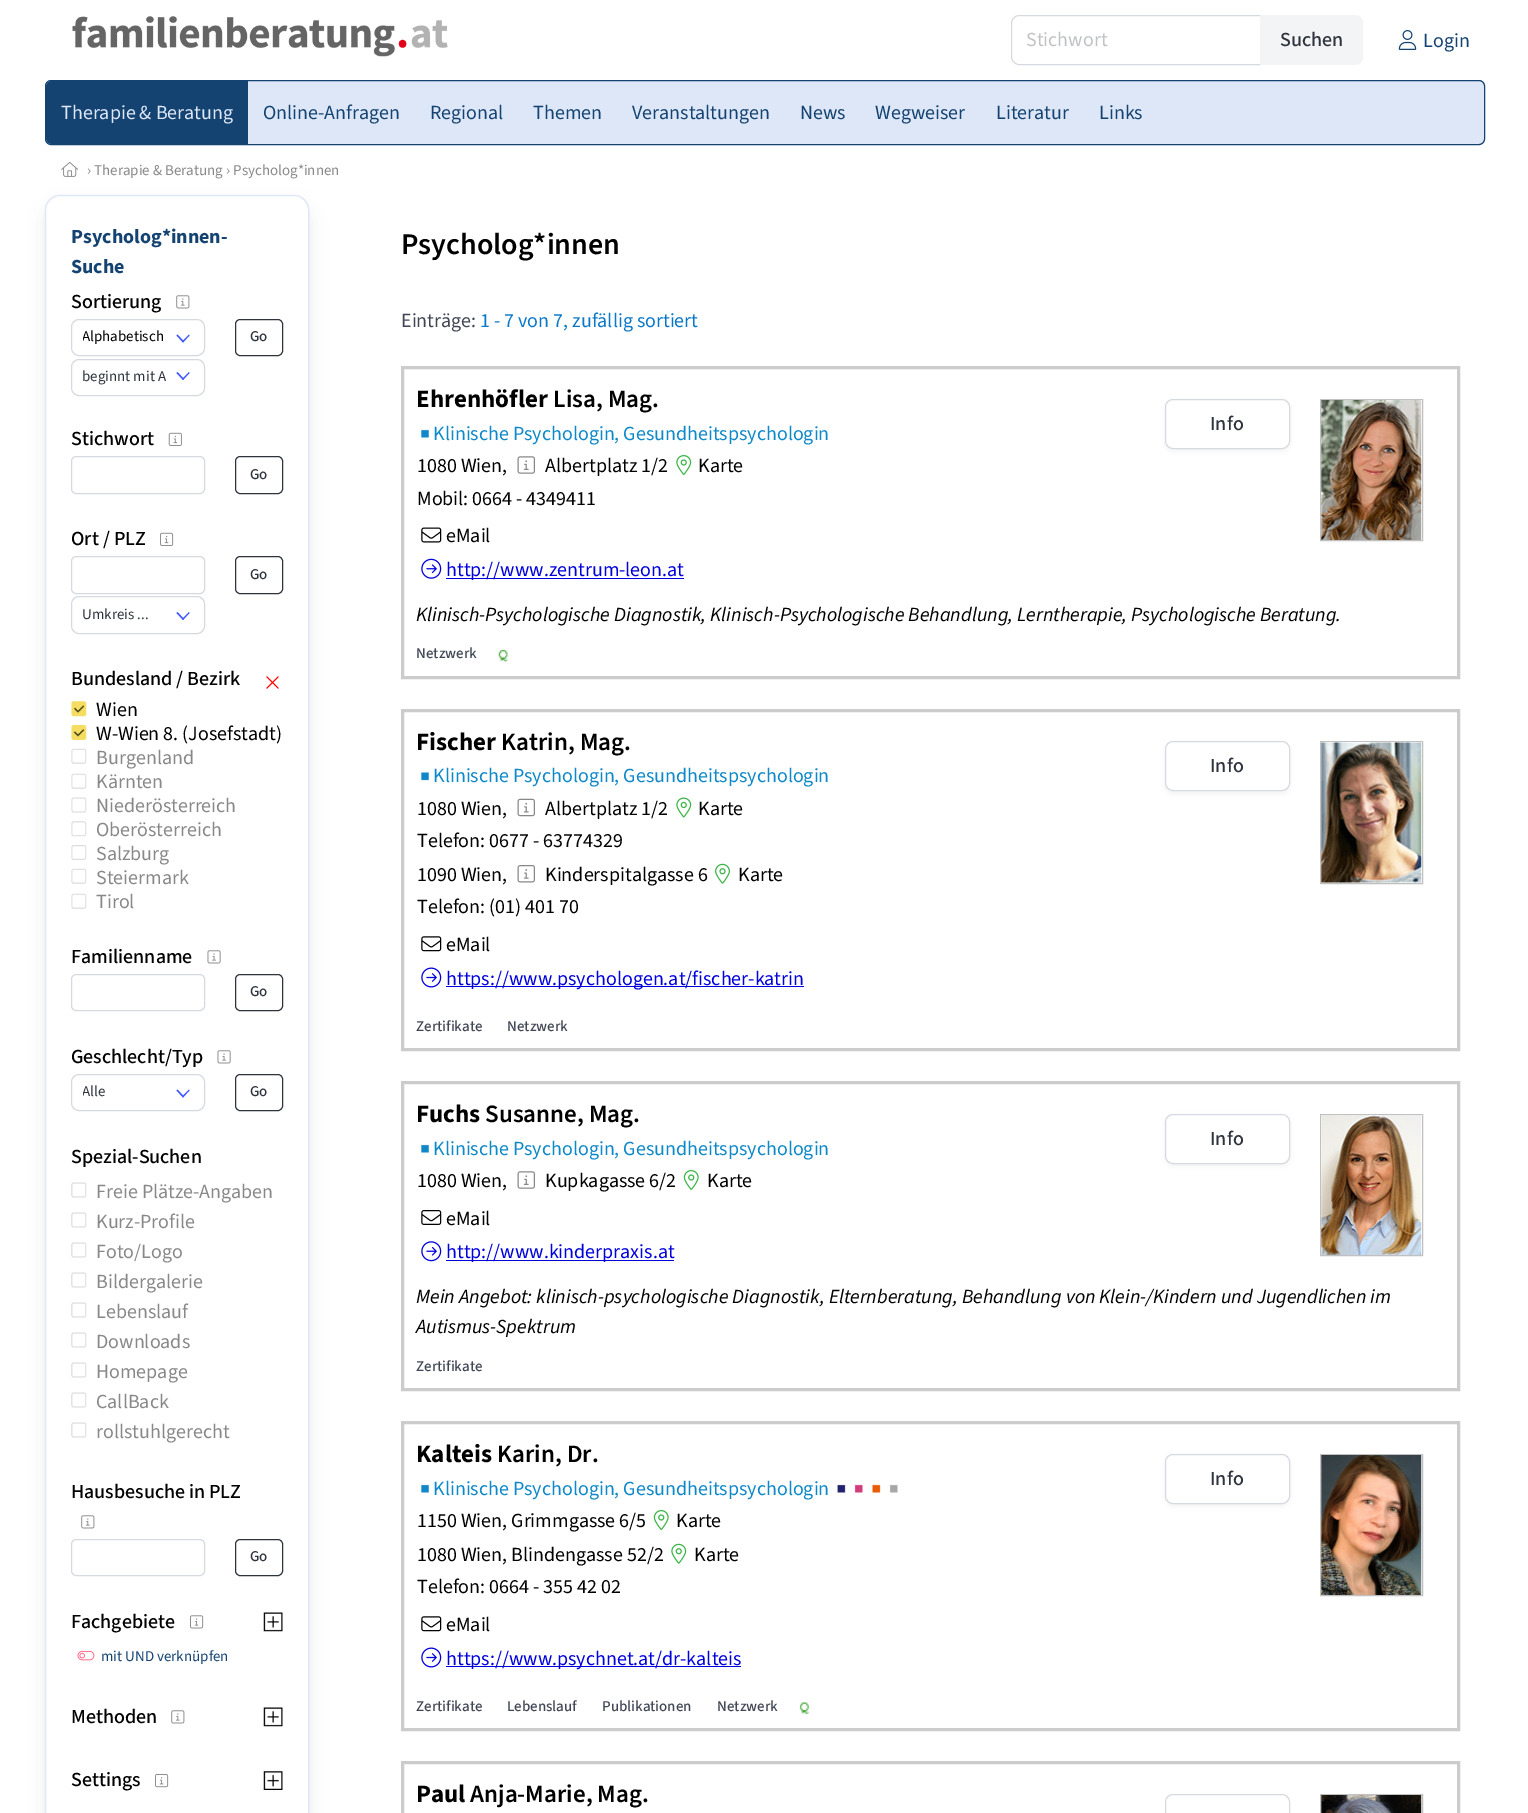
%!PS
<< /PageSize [1528 1813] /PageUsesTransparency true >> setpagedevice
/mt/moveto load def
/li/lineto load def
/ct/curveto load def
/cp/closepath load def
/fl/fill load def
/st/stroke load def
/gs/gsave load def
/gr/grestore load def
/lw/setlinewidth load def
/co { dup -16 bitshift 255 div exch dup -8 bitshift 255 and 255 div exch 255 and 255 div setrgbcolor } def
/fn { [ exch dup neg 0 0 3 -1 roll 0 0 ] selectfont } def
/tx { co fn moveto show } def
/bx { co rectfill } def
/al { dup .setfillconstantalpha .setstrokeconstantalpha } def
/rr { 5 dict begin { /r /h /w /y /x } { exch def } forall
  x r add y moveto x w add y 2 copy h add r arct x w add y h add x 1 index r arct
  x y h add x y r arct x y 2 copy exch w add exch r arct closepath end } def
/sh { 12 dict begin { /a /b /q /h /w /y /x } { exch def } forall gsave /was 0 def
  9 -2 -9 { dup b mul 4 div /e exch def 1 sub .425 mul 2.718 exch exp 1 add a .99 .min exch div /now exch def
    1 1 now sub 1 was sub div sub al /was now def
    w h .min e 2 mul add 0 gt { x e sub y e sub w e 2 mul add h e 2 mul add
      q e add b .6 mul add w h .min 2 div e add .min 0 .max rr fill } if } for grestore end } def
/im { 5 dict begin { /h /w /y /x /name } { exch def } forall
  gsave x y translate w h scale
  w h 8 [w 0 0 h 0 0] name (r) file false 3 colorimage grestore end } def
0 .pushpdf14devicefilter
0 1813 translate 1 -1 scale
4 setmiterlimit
0 0 1528 1813 16#FFFFFF bx
(media/1.raw) 72 16 376 41 im
16#D6D9E0 co
1019 15.5 mt 1260.5 15.5 li 1260.5 64.5 li 1019 64.5 li 1015 64.5 1011.5 61 1011.5 57 ct 1011.5 23 li 1011.5 19 1015 15.5 1019 15.5 ct cp st
16#F3F4F6 co
1260 15 mt 1355 15 li 1359.5 15 1363 18.5 1363 23 ct 1363 57 li 1363 61.5 1359.5 65 1355 65 ct 1260 65 li cp fl
(media/2.raw) 1398 30 19 20 im
16#DEE7F7 co
45.5 80.5 1439 64 5.5 rr gs fl gr
16#144372 co
st
52 81 mt 248 81 li 248 144 li 52 144 li 48.5 144 46 141.5 46 138 ct 46 87 li 46 83.5 48.5 81 52 81 ct cp fl
(media/3.raw) 61 161 18 16 im
16#FAFAFA co
44.5 194.5 265 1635 15.5 rr st
16#090A0C co
48 208 258 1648 13 10 .1 sh
16#FFFFFF co
45.5 195.5 263 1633 14.5 rr gs fl gr
16#DEE7F7 co
st
(media/4.raw) 176 295 14 14 im
16#D6D9E0 co
71.5 319.5 133 36 7.5 rr st
16#4258FF co
182 341.5 mt 189 334.5 li 189.5 335.5 li 183 342.5 li cp fl
16#D6D9E0 co
71.5 359.5 133 36 7.5 rr st
16#4258FF co
176.5 335.5 mt 177.5 334.5 li 184 341.5 li 183 342.5 li cp 182 379 mt 189 372 li 189.5 373 li 183 380 li cp fl
176.5 373 mt 177.5 372 li 184 379 li 183 380 li cp fl
16#2E333D co
235.5 319.5 47 36 4.5 rr st
(media/5.raw) 168 432 14 14 im
16#D6D9E0 co
71.5 456.5 133 37 4.5 rr st
16#2E333D co
235.5 456.5 47 37 4.5 rr st
(media/6.raw) 160 532 14 14 im
235.5 556.5 47 37 4.5 rr st
16#D6D9E0 co
71.5 556.5 133 37 4.5 rr st
71.5 596.5 133 37 7.5 rr st
16#4258FF co
182 619 mt 189 612 li 189.5 613 li 183 620 li cp fl
176.5 613 mt 177.5 612 li 184 619 li 183 620 li cp fl
(media/7.raw) 266 676 13 13 im
(media/8.raw) 71 701 16 16 im
(media/9.raw) 71 725 16 15 im
(media/10.raw) 71 748 16 16 im
(media/10.raw) 71 773 16 16 im
(media/11.raw) 71 797 16 16 im
(media/12.raw) 71 821 16 16 im
(media/13.raw) 71 845 16 15 im
(media/10.raw) 71 868 16 16 im
(media/10.raw) 71 893 16 16 im
(media/14.raw) 207 950 14 14 im
16#D6D9E0 co
71.5 974.5 133 36 4.5 rr st
16#2E333D co
235.5 974.5 47 36 4.5 rr st
(media/14.raw) 217 1050 14 14 im
16#D6D9E0 co
71.5 1074.5 133 36 7.5 rr st
16#4258FF co
182 1096.5 mt 189 1089.5 li 189.5 1090.5 li 183 1097.5 li cp fl
176.5 1090.5 mt 177.5 1089.5 li 184 1096.5 li 183 1097.5 li cp fl
16#2E333D co
235.5 1074.5 47 36 4.5 rr st
(media/15.raw) 71 1182 16 16 im
(media/15.raw) 71 1212 16 16 im
(media/15.raw) 71 1242 16 16 im
(media/15.raw) 71 1272 16 16 im
(media/15.raw) 71 1302 16 16 im
(media/15.raw) 71 1332 16 16 im
(media/15.raw) 71 1362 16 16 im
(media/15.raw) 71 1392 16 16 im
(media/15.raw) 71 1422 16 16 im
(media/4.raw) 81 1515 14 14 im
16#D6D9E0 co
71.5 1539.5 133 36 4.5 rr st
16#2E333D co
235.5 1539.5 47 36 4.5 rr st
(media/16.raw) 190 1615 14 14 im
(media/17.raw) 263 1612 20 20 im
(media/18.raw) 77 1650 18 11 im
(media/4.raw) 171 1710 14 14 im
(media/17.raw) 263 1707 20 20 im
(media/19.raw) 155 1774 14 14 im
(media/20.raw) 263 1771 20 19 im
16#CCCCCC co
3 lw
402.5 367.5 1056 310 rectstroke
(media/21.raw) 421 429 8 9 im
(media/22.raw) 517 456 18 18 im
(media/23.raw) 676 455 16 20 im
(media/24.raw) 421 527 21 16 im
(media/25.raw) 421 558 21 21 im
446 578 238 1 16#0000DD bx
16#333333 co
1165 401 125 50 8 2.5 .05 sh
16#FFFFFF co
1165.5 399.5 124 49 7.5 rr gs fl gr
16#D6D9E0 co
1 lw
st
16#C0C0C0 co
1320.5 399.5 102 141 rectstroke
(media/26.raw) 1321 400 101 140 im
(media/27.raw) 498 649 10 13 im
16#CCCCCC co
3 lw
402.5 710.5 1056 339 rectstroke
(media/28.raw) 421 772 8 9 im
(media/29.raw) 517 798 18 19 im
(media/30.raw) 676 797 16 21 im
(media/31.raw) 517 865 18 18 im
(media/32.raw) 715 863 15 21 im
(media/33.raw) 421 936 21 16 im
(media/34.raw) 421 967 21 21 im
446 986 358 1 16#0000DD bx
16#333333 co
1165 744 125 50 8 2.5 .05 sh
16#FFFFFF co
1165.5 741.5 124 49 7.5 rr gs fl gr
16#D6D9E0 co
1 lw
st
16#C0C0C0 co
1320.5 741.5 102 142 rectstroke
(media/35.raw) 1321 742 101 141 im
16#CCCCCC co
3 lw
402.5 1082.5 1056 307 rectstroke
(media/21.raw) 421 1144 8 9 im
(media/22.raw) 517 1171 18 18 im
(media/36.raw) 683 1170 16 20 im
(media/37.raw) 421 1210 21 15 im
(media/38.raw) 421 1241 21 21 im
446 1260 228 1 16#0000DD bx
16#333333 co
1165 1116 125 50 8 2.5 .05 sh
16#FFFFFF co
1165.5 1114.5 124 49 7.5 rr gs fl gr
16#D6D9E0 co
1 lw
st
16#C0C0C0 co
1320.5 1114.5 102 141 rectstroke
(media/39.raw) 1321 1115 101 140 im
16#CCCCCC co
3 lw
402.5 1422.5 1056 307 rectstroke
(media/21.raw) 421 1484 8 9 im
(media/40.raw) 837 1484 9 9 im
(media/41.raw) 854 1484 9 9 im
(media/42.raw) 872 1484 9 9 im
(media/43.raw) 889 1484 9 9 im
(media/36.raw) 653 1510 16 20 im
(media/44.raw) 671 1543 16 21 im
(media/33.raw) 421 1616 21 16 im
(media/34.raw) 421 1647 21 21 im
446 1666 295 1 16#0000DD bx
16#333333 co
1165 1456 125 50 8 2.5 .05 sh
16#FFFFFF co
1165.5 1454.5 124 49 7.5 rr gs fl gr
16#D6D9E0 co
1 lw
st
16#C0C0C0 co
1320.5 1454.5 102 141 rectstroke
(media/45.raw) 1321 1455 101 140 im
(media/46.raw) 799 1702 10 12 im
16#CCCCCC co
3 lw
402.5 1762.5 1056 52 rectstroke
16#D6D9E0 co
1 lw
1165.5 1794.5 124 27 7.5 rr st
16#C0C0C0 co
1320.5 1794.5 102 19 rectstroke
(media/47.raw) 1321 1795 101 18 im
(Stichwort) 1026 46 /SourceSans3-Regular 20 16#C0C2C5 tx
(Suchen) 1280 46 /SourceSans3-Medium 20 16#2E333D tx
(Login) 1423 47 /SourceSans3-Regular 20 16#144372 tx
(Therapie & Beratung) 61 119 /SourceSans3-Regular 20 16#DEE7F7 tx
(Online-Anfragen) 263 119 /SourceSans3-Regular 20 16#144372 tx
(Regional) 430 119 /SourceSans3-Regular 20 16#144372 tx
(Themen) 533 119 /SourceSans3-Regular 20 16#144372 tx
(Veranstaltungen) 632 119 /SourceSans3-Regular 20 16#144372 tx
(News) 800 119 /SourceSans3-Regular 20 16#144372 tx
(Wegweiser) 875 119 /SourceSans3-Regular 20 16#144372 tx
(Literatur) 996 119 /SourceSans3-Regular 20 16#144372 tx
(Links) 1099 119 /SourceSans3-Regular 20 16#144372 tx
(› Therapie & Beratung › Psycholog*innen) 87 175 /SourceSans3-Regular 15 16#888888 tx
(Psycholog*innen-) 71 243 /SourceSans3-Bold 20 16#144372 tx
(Suche) 71 273 /SourceSans3-Bold 20 16#144372 tx
(Sortierung) 71 308 /SourceSans3-Medium 20 16#000000 tx
gs
83 326 83 23 rectclip
(Alphabetisch) 82 341 /SourceSans3-Regular 15 16#000000 tx
gr
(beginnt mit A) 82 381 /SourceSans3-Regular 15 16#2E333D tx
(Go) 250 341 /SourceSans3-Medium 15 16#2E333D tx
(Stichwort) 71 445 /SourceSans3-Medium 20 16#000000 tx
(Go) 250 479 /SourceSans3-Medium 15 16#2E333D tx
(Ort / PLZ) 71 545 /SourceSans3-Medium 20 16#000000 tx
(Go) 250 579 /SourceSans3-Medium 15 16#2E333D tx
(Umkreis ...) 82 619 /SourceSans3-Regular 15 16#2E333D tx
(Bundesland / Bezirk) 71 685 /SourceSans3-Medium 20 16#000000 tx
(Wien) 96 716 /SourceSans3-Regular 20 16#000000 tx
(W-Wien 8. \(Josefstadt\)) 96 740 /SourceSans3-Regular 20 16#000000 tx
(Burgenland) 96 764 /SourceSans3-Regular 20 16#888888 tx
(Kärnten) 96 788 /SourceSans3-Regular 20 16#888888 tx
(Niederösterreich) 96 812 /SourceSans3-Regular 20 16#888888 tx
(Oberösterreich) 96 836 /SourceSans3-Regular 20 16#888888 tx
(Salzburg) 96 860 /SourceSans3-Regular 20 16#888888 tx
(Steiermark) 96 884 /SourceSans3-Regular 20 16#888888 tx
(Tirol) 96 908 /SourceSans3-Regular 20 16#888888 tx
(Familienname) 71 963 /SourceSans3-Medium 20 16#000000 tx
(Go) 250 996 /SourceSans3-Medium 15 16#2E333D tx
(Geschlecht/Typ) 71 1063 /SourceSans3-Medium 20 16#000000 tx
gs
83 1081 83 23 rectclip
(Alle) 82 1096 /SourceSans3-Regular 15 16#2E333D tx
gr
(Go) 250 1096 /SourceSans3-Medium 15 16#2E333D tx
(Spezial-Suchen) 71 1163 /SourceSans3-Medium 20 16#000000 tx
(Freie Plätze-Angaben) 96 1198 /SourceSans3-Regular 20 16#888888 tx
(Kurz-Profile) 96 1228 /SourceSans3-Regular 20 16#888888 tx
(Foto/Logo) 96 1258 /SourceSans3-Regular 20 16#888888 tx
(Bildergalerie) 96 1288 /SourceSans3-Regular 20 16#888888 tx
(Lebenslauf) 96 1318 /SourceSans3-Regular 20 16#888888 tx
(Downloads) 96 1348 /SourceSans3-Regular 20 16#888888 tx
(Homepage) 96 1378 /SourceSans3-Regular 20 16#888888 tx
(CallBack) 96 1408 /SourceSans3-Regular 20 16#888888 tx
(rollstuhlgerecht) 96 1438 /SourceSans3-Regular 20 16#888888 tx
(Hausbesuche in PLZ) 71 1498 /SourceSans3-Medium 20 16#000000 tx
(Go) 250 1561 /SourceSans3-Medium 15 16#2E333D tx
(Fachgebiete) 71 1628 /SourceSans3-Medium 20 16#000000 tx
(mit UND verknüpfen) 101 1661 /SourceSans3-Regular 15 16#144372 tx
(Methoden) 71 1723 /SourceSans3-Medium 20 16#000000 tx
(Settings) 71 1786 /SourceSans3-Medium 20 16#000000 tx
(Psycholog*innen) 401 254 /SourceSans3-SemiBold 30 16#000000 tx
(Einträge:) 401 327 /SourceSans3-Regular 20 16#404654 tx
(1 - 7 von 7, zufällig sortiert) 480 327 /SourceSans3-Regular 20 16#0A78C8 tx
(Ehrenhöfler) 416 407 /SourceSans3-Bold 25 16#000000 tx
(Lisa, Mag.) 553 407 /SourceSans3-SemiBold 25 16#000000 tx
(Klinische Psychologin, Gesundheitspsychologin) 433 440 /SourceSans3-Regular 20 16#0D88C8 tx
(1080 Wien,) 417 472 /SourceSans3-Regular 20 16#000000 tx
(Albertplatz 1/2) 545 472 /SourceSans3-Regular 20 16#000000 tx
(Karte) 698 472 /SourceSans3-Regular 20 16#000000 tx
(Mobil: 0664 - 4349411) 417 505 /SourceSans3-Regular 20 16#000000 tx
(eMail) 446 542 /SourceSans3-Regular 20 16#000000 tx
(http://www.zentrum-leon.at) 446 576 /SourceSans3-Regular 20 16#0000DD tx
(Info) 1210 430 /SourceSans3-Medium 20 16#2E333D tx
(Klinisch-Psychologische Diagnostik, Klinisch-Psychologische Behandlung, Lerntherapie, Psychologische Beratung.) 416 621 /SourceSans3-Italic 20 16#000000 tx
(Netzwerk) 416 658 /SourceSans3-Medium 15 16#404654 tx
(Fischer) 416 750 /SourceSans3-Bold 25 16#000000 tx
(Katrin, Mag.) 501 750 /SourceSans3-SemiBold 25 16#000000 tx
(Klinische Psychologin, Gesundheitspsychologin) 433 782 /SourceSans3-Regular 20 16#0D88C8 tx
(1080 Wien,) 417 815 /SourceSans3-Regular 20 16#000000 tx
(Albertplatz 1/2) 545 815 /SourceSans3-Regular 20 16#000000 tx
(Karte) 698 815 /SourceSans3-Regular 20 16#000000 tx
(Telefon: 0677 - 63774329) 417 847 /SourceSans3-Regular 20 16#000000 tx
(1090 Wien,) 417 881 /SourceSans3-Regular 20 16#000000 tx
(Kinderspitalgasse 6) 545 881 /SourceSans3-Regular 20 16#000000 tx
(Karte) 738 881 /SourceSans3-Regular 20 16#000000 tx
(Telefon: \(01\) 401 70) 417 913 /SourceSans3-Regular 20 16#000000 tx
(eMail) 446 951 /SourceSans3-Regular 20 16#000000 tx
(https://www.psychologen.at/fischer-katrin) 446 985 /SourceSans3-Regular 20 16#0000DD tx
(Info) 1210 772 /SourceSans3-Medium 20 16#2E333D tx
(Zertifikate) 416 1031 /SourceSans3-Medium 15 16#404654 tx
(Netzwerk) 507 1031 /SourceSans3-Medium 15 16#404654 tx
(Fuchs) 416 1122 /SourceSans3-Bold 25 16#000000 tx
(Susanne, Mag.) 485 1122 /SourceSans3-SemiBold 25 16#000000 tx
(Klinische Psychologin, Gesundheitspsychologin) 433 1155 /SourceSans3-Regular 20 16#0D88C8 tx
(1080 Wien,) 417 1187 /SourceSans3-Regular 20 16#000000 tx
(Kupkagasse 6/2) 545 1187 /SourceSans3-Regular 20 16#000000 tx
(Karte) 707 1187 /SourceSans3-Regular 20 16#000000 tx
(eMail) 446 1225 /SourceSans3-Regular 20 16#000000 tx
(http://www.kinderpraxis.at) 446 1258 /SourceSans3-Regular 20 16#0000DD tx
(Info) 1210 1145 /SourceSans3-Medium 20 16#2E333D tx
(Mein Angebot: klinisch-psychologische Diagnostik, Elternberatung, Behandlung von Klein-/Kindern und Jugendlichen im) 416 1303 /SourceSans3-Italic 20 16#000000 tx
(Autismus-Spektrum) 416 1333 /SourceSans3-Italic 20 16#000000 tx
(Zertifikate) 416 1371 /SourceSans3-Medium 15 16#404654 tx
(Kalteis) 416 1462 /SourceSans3-Bold 25 16#000000 tx
(Karin, Dr.) 497 1462 /SourceSans3-SemiBold 25 16#000000 tx
(Klinische Psychologin, Gesundheitspsychologin) 433 1495 /SourceSans3-Regular 20 16#0D88C8 tx
(1150 Wien, Grimmgasse 6/5) 417 1527 /SourceSans3-Regular 20 16#000000 tx
(Karte) 676 1527 /SourceSans3-Regular 20 16#000000 tx
(1080 Wien, Blindengasse 52/2) 417 1561 /SourceSans3-Regular 20 16#000000 tx
(Karte) 694 1561 /SourceSans3-Regular 20 16#000000 tx
(Telefon: 0664 - 355 42 02) 417 1593 /SourceSans3-Regular 20 16#000000 tx
(eMail) 446 1631 /SourceSans3-Regular 20 16#000000 tx
(https://www.psychnet.at/dr-kalteis) 446 1665 /SourceSans3-Regular 20 16#0000DD tx
(Info) 1210 1485 /SourceSans3-Medium 20 16#2E333D tx
(Zertifikate) 416 1711 /SourceSans3-Medium 15 16#404654 tx
(Lebenslauf) 507 1711 /SourceSans3-Medium 15 16#404654 tx
(Publikationen) 602 1711 /SourceSans3-Medium 15 16#404654 tx
(Netzwerk) 717 1711 /SourceSans3-Medium 15 16#404654 tx
(Paul) 416 1802 /SourceSans3-Bold 25 16#000000 tx
(Anja-Marie, Mag.) 470 1802 /SourceSans3-SemiBold 25 16#000000 tx
.poppdf14devicefilter showpage
